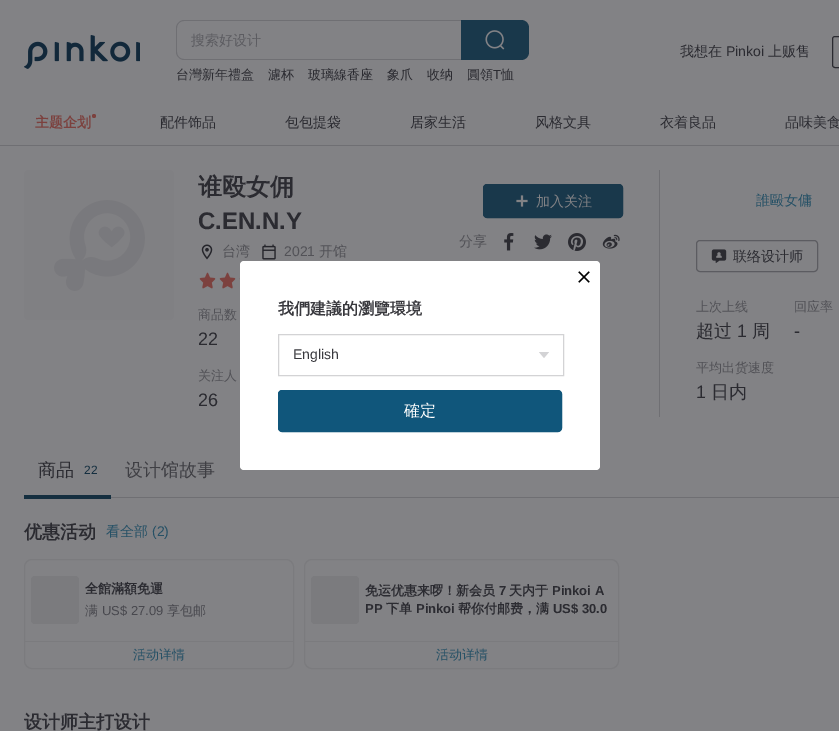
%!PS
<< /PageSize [839 731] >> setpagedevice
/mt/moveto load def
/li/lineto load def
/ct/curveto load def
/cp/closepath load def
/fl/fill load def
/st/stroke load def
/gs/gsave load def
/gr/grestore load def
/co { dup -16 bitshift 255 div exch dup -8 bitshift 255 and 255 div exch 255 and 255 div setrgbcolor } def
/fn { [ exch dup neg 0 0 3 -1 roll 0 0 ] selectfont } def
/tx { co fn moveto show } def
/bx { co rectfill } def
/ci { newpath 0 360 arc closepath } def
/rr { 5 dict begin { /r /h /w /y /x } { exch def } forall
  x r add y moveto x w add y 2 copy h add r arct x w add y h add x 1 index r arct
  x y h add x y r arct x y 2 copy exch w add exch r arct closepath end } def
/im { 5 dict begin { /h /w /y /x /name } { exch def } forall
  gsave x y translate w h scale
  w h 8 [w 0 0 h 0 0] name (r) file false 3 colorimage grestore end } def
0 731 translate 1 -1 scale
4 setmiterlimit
0 0 839 731 16#828285 bx
(media/1.raw) 24 35 116 34 im
16#6F6F73 co
184 20 mt 461 20 li 461 60 li 184 60 li 180 60 176 56 176 52 ct 176 28 li 176 24 180 20 184 20 ct cp 184 21 mt 461 21 li 461 59 li 184 59 li 180 59 177 56 177 52 ct 177 28 li 177 24 180 21 184 21 ct cp eofill
16#19384B co
461 20 mt 521 20 li 525.5 20 529 23.5 529 28 ct 529 52 li 529 56.5 525.5 60 521 60 ct 461 60 li cp fl
(media/2.raw) 485 30 20 20 im
16#2B2B31 co
832.5 36.5 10 31 2.5 rr st
0 145 839 1 16#6F6F73 bx
16#7C413E co
94 116 2 ci fl
(media/3.raw) 24 170 150 150 im
(media/4.raw) 201 244 12 16 im
(media/5.raw) 262 244 14 16 im
(media/6.raw) 199 272 17 17 im
(media/6.raw) 219 272 17 17 im
(media/7.raw) 239 278 1 2 im
16#19384B co
483.5 184.5 139 33 3.5 rr gs fl gr
st
(media/8.raw) 516 195 12 12 im
(media/9.raw) 504 233 10 18 im
(media/10.raw) 534 234 18 16 im
(media/11.raw) 568 233 18 18 im
(media/12.raw) 602 234 18 15 im
659 170 1 247 16#6F6F73 bx
16#5C5C61 co
696.5 240.5 121 31 3.5 rr st
(media/13.raw) 711 249 16 14 im
111 497 728 1 16#6F6F73 bx
24 495 87 4 16#152F40 bx
16#7B7B7E co
24.5 559.5 269 109 7.5 rr st
31 576 48 48 4 rr fl
25 641 268 1 16#7B7B7E bx
304.5 559.5 314 109 7.5 rr st
311 576 48 48 4 rr fl
305 641 313 1 16#7B7B7E bx
16#FFFFFF co
240 261 360 209 4 rr fl
(media/14.raw) 578 271 12 12 im
16#D3D3D5 co
278.5 334.5 285 41 rectstroke
539 352 mt 549 352 li 544 358 li cp eofill
16#10567B co
278.5 390.5 283 41 3.5 rr gs fl gr
st
(搜索好设计) 191 45 /WenQuanYiZenHei-Medium 14 16#5C5C61 tx
(台灣新年禮盒) 176 79 /WenQuanYiZenHei-Medium 13 16#2B2B31 tx
(濾杯) 268 79 /WenQuanYiZenHei-Medium 13 16#2B2B31 tx
(玻璃線香座) 308 79 /WenQuanYiZenHei-Medium 13 16#2B2B31 tx
(象爪) 387 79 /WenQuanYiZenHei-Medium 13 16#2B2B31 tx
(收纳) 427 79 /WenQuanYiZenHei-Medium 13 16#2B2B31 tx
(圓領) 467 79 /WenQuanYiZenHei-Medium 13 16#2B2B31 tx
(T) 493 79 /LiberationSans-Regular 13 16#2B2B31 tx
(恤) 501 79 /WenQuanYiZenHei-Medium 13 16#2B2B31 tx
(我想在) 680 56 /WenQuanYiZenHei-Medium 14 16#2B2B31 tx
(Pinkoi) 726 56 /LiberationSans-Regular 14 16#2B2B31 tx
(上贩售) 768 56 /WenQuanYiZenHei-Medium 14 16#2B2B31 tx
(主题企划) 35 127 /WenQuanYiZenHei-Bold 14 16#7C413E tx
(配件饰品) 160 127 /WenQuanYiZenHei-Medium 14 16#2B2B31 tx
(包包提袋) 285 127 /WenQuanYiZenHei-Medium 14 16#2B2B31 tx
(居家生活) 410 127 /WenQuanYiZenHei-Medium 14 16#2B2B31 tx
(风格文具) 535 127 /WenQuanYiZenHei-Medium 14 16#2B2B31 tx
(衣着良品) 660 127 /WenQuanYiZenHei-Medium 14 16#2B2B31 tx
(品味美食) 785 127 /WenQuanYiZenHei-Medium 14 16#2B2B31 tx
(谁殴女佣) 198 195 /WenQuanYiZenHei-Bold 24 16#2B2B31 tx
(C.EN.N.Y) 198 229 /LiberationSans-Bold 24 16#2B2B31 tx
(台湾) 222 256 /WenQuanYiZenHei-Medium 14 16#525257 tx
(2021) 284 256 /LiberationSans-Regular 14 16#525257 tx
(开馆) 319 256 /WenQuanYiZenHei-Medium 14 16#525257 tx
(商品数) 198 319 /WenQuanYiZenHei-Medium 13 16#525257 tx
(22) 198 345 /LiberationSans-Regular 18 16#2B2B31 tx
(关注人) 198 380 /WenQuanYiZenHei-Medium 13 16#525257 tx
(26) 198 406 /LiberationSans-Regular 18 16#2B2B31 tx
(加入关注) 536 206 /WenQuanYiZenHei-Medium 14 16#828285 tx
(分享) 459 246 /WenQuanYiZenHei-Medium 14 16#525257 tx
(誰毆女傭) 756 205 /WenQuanYiZenHei-Medium 14 16#265166 tx
(联络设计师) 733 261 /WenQuanYiZenHei-Medium 14 16#2B2B31 tx
(上次上线) 696 311 /WenQuanYiZenHei-Medium 13 16#525257 tx
(超过) 696 337 /WenQuanYiZenHei-Medium 18 16#2B2B31 tx
(1) 737 337 /LiberationSans-Regular 18 16#2B2B31 tx
(周) 752 337 /WenQuanYiZenHei-Medium 18 16#2B2B31 tx
(回应率) 794 311 /WenQuanYiZenHei-Medium 13 16#525257 tx
(-) 794 337 /LiberationSans-Regular 18 16#2B2B31 tx
(平均出货速度) 696 372 /WenQuanYiZenHei-Medium 13 16#525257 tx
(1) 696 398 /LiberationSans-Regular 18 16#2B2B31 tx
(日内) 711 398 /WenQuanYiZenHei-Medium 18 16#2B2B31 tx
(商品) 38 476 /WenQuanYiZenHei-Medium 18 16#2B2B31 tx
(22) 84 474 /LiberationSans-Regular 12 16#152F40 tx
(设计馆故事) 125 476 /WenQuanYiZenHei-Medium 18 16#3F3F44 tx
(优惠活动) 24 538 /WenQuanYiZenHei-Bold 18 16#2B2B31 tx
(看全部) 106 536 /WenQuanYiZenHei-Medium 14 16#265166 tx
(\(2\)) 152 536 /LiberationSans-Regular 14 16#265166 tx
(全館滿額免運) 85 593 /WenQuanYiZenHei-Bold 13 16#2B2B31 tx
(满) 85 615 /WenQuanYiZenHei-Medium 13 16#48484E tx
(US$ 27.09) 102 615 /LiberationSans-Regular 13 16#48484E tx
(享包邮) 167 615 /WenQuanYiZenHei-Medium 13 16#48484E tx
(活动详情) 133 659 /WenQuanYiZenHei-Medium 13 16#265166 tx
(免运优惠来啰！新会员) 365 595 /WenQuanYiZenHei-Bold 13 16#2B2B31 tx
(7) 499 595 /LiberationSans-Bold 13 16#2B2B31 tx
(天内于) 509 595 /WenQuanYiZenHei-Bold 13 16#2B2B31 tx
(Pinkoi A) 552 595 /LiberationSans-Bold 13 16#2B2B31 tx
(PP) 365 613 /LiberationSans-Bold 13 16#2B2B31 tx
(下单) 386 613 /WenQuanYiZenHei-Bold 13 16#2B2B31 tx
(Pinkoi) 416 613 /LiberationSans-Bold 13 16#2B2B31 tx
(帮你付邮费，满) 458 613 /WenQuanYiZenHei-Bold 13 16#2B2B31 tx
(US$ 30.0) 553 613 /LiberationSans-Bold 13 16#2B2B31 tx
(活动详情) 436 659 /WenQuanYiZenHei-Medium 13 16#265166 tx
(设计师主打设计) 24 728 /WenQuanYiZenHei-Bold 18 16#2B2B31 tx
(我們建議的瀏覽環境) 278 314 /WenQuanYiZenHei-Bold 16 16#39393E tx
(English) 293 359 /LiberationSans-Regular 14 16#39393E tx
(確定) 404 416 /WenQuanYiZenHei-Medium 16 16#FFFFFF tx
showpage
